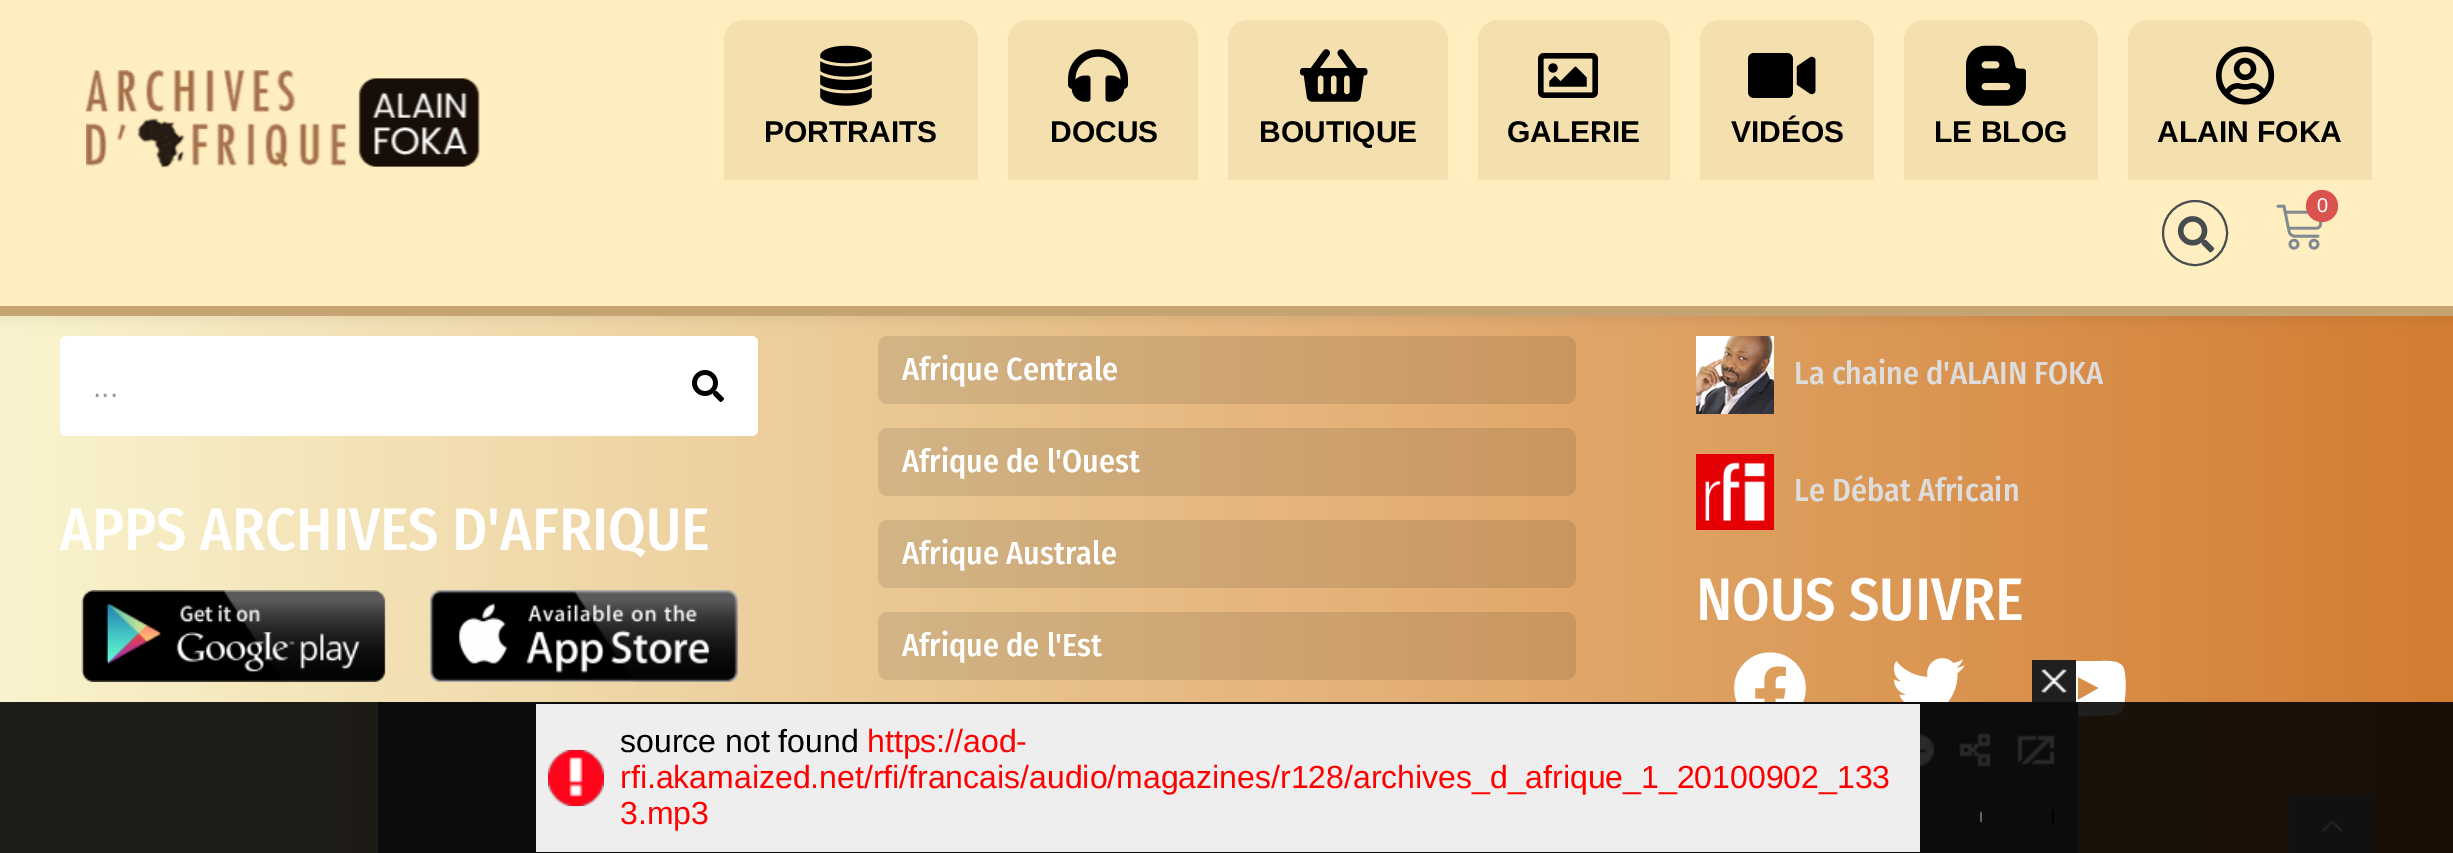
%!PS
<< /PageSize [2453 853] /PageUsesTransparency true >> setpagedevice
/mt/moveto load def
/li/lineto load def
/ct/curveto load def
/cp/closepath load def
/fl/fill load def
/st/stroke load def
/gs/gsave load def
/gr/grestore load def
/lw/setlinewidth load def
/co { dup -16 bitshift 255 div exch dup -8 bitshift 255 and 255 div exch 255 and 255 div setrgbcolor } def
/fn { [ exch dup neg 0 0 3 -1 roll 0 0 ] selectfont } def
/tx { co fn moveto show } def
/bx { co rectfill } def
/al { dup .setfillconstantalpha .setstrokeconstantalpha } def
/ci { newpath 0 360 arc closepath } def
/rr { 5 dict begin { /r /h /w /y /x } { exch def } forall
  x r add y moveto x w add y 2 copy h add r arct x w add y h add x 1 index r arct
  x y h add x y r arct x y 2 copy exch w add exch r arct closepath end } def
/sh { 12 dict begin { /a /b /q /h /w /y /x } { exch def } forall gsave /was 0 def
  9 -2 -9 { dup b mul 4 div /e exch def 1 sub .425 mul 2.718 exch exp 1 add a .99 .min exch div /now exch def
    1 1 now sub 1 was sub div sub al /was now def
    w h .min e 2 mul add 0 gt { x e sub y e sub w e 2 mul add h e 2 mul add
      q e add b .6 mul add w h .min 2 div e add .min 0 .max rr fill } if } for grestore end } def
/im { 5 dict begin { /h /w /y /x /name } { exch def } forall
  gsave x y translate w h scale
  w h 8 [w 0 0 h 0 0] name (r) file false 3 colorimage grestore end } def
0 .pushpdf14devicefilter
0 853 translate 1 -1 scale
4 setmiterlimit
0 0 2453 853 16#FFFFFF bx
gs 0 316 mt 2453 316 li 2453 853 li 0 853 li cp clip newpath
<< /ShadingType 2 /ColorSpace /DeviceRGB /Coords [0 530 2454 530] /Extend [true true] /Function << /FunctionType 2 /Domain [0 1] /C0 [.976 .957 .808] /C1 [.824 .486 .192] /N 1 >> >> shfill gr
60 336 698 100 6 rr fl
0.1 al
16#000000 co
878 336 698 68 10 rr fl
1 al
(media/14.raw) 1696 336 78 78 im
0 4 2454 316 0 6 .06 sh
0 0 2453 306 16#FFEEC0 bx
0 306 2453 10 16#C5A373 bx
(media/1.raw) 86 70 394 99 im
16#F4E0AE co
744 20 mt 958 20 li 969 20 978 29 978 40 ct 978 180 li 724 180 li 724 40 li 724 29 733 20 744 20 ct cp fl
(media/2.raw) 820 45 52 61 im
1028 20 mt 1178 20 li 1189 20 1198 29 1198 40 ct 1198 180 li 1008 180 li 1008 40 li 1008 29 1017 20 1028 20 ct cp fl
(media/3.raw) 1068 49 60 53 im
1248 20 mt 1428 20 li 1439 20 1448 29 1448 40 ct 1448 180 li 1228 180 li 1228 40 li 1228 29 1237 20 1248 20 ct cp fl
(media/4.raw) 1300 49 68 53 im
1498 20 mt 1650 20 li 1661 20 1670 29 1670 40 ct 1670 180 li 1478 180 li 1478 40 li 1478 29 1487 20 1498 20 ct cp fl
(media/5.raw) 1538 53 60 45 im
1720 20 mt 1854 20 li 1865 20 1874 29 1874 40 ct 1874 180 li 1700 180 li 1700 40 li 1700 29 1709 20 1720 20 ct cp fl
(media/6.raw) 1748 53 68 45 im
1924 20 mt 2078 20 li 2089 20 2098 29 2098 40 ct 2098 180 li 1904 180 li 1904 40 li 1904 29 1913 20 1924 20 ct cp fl
(media/7.raw) 1966 45 60 61 im
2148 20 mt 2352 20 li 2363 20 2372 29 2372 40 ct 2372 180 li 2128 180 li 2128 40 li 2128 29 2137 20 2148 20 ct cp fl
(media/8.raw) 2216 46 59 59 im
16#494C4F co
2 lw
2195 233 32 ci st
(media/9.raw) 2177 216 38 37 im
(media/10.raw) 2276 204 47 46 im
16#D9534F co
2322 206 16 ci fl
(media/11.raw) 692 370 32 32 im
(media/12.raw) 81 590 305 92 im
(media/13.raw) 430 590 308 92 im
0.1 al
16#000000 co
878 428 698 68 10 rr fl
878 520 698 68 10 rr fl
878 612 698 68 10 rr fl
1 al
(media/15.raw) 1696 454 78 76 im
(media/16.raw) 1734 652 72 50 im
(media/17.raw) 1894 658 71 44 im
16#FFFFFF co
2124 669 mt 2126 678 2126 688 2125 697 ct 2124 711 2122 715 2108 715 ct 2089 716 li 2081 716 2061 717 2054 714 ct 2051 713 2049 710 2048 707 ct 2046 700 2046 690 2047 682 ct 2047 670 2047 662 2061 661 ct 2078 661 li 2102 661 li 2109 661 2121 660 2124 669 ct cp 2078 700 mt 2099 688 li 2078 677 li cp fl
16#888888 co
2296 794 mt 2368 794 li 2371.5 794 2374 796.5 2374 800 ct 2374 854 li 2290 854 li 2290 800 li 2290 796.5 2292.5 794 2296 794 ct cp fl
(media/18.raw) 2322 820 21 12 im
(media/19.raw) 2032 660 44 42 im
0.88 al
0 702 2453 151 16#000000 bx
1 al
378 702 1700 151 16#1F1F1F bx
(media/20.raw) 1920 733 15 34 im
(media/21.raw) 1959 733 32 34 im
(media/22.raw) 2017 735 38 30 im
(media/23.raw) 1980 811 2 12 im
(media/24.raw) 2052 809 2 16 im
0.6 al
378 702 1700 151 16#000000 bx
1 al
536 704 1384 148 16#EEEEEE bx
(media/25.raw) 548 750 56 56 im
(PORTRAITS) 764 142 /Arimo-Bold 30 16#000000 tx
(DOCUS) 1050 142 /Arimo-Bold 30 16#000000 tx
(BOUTIQUE) 1259 142 /Arimo-Bold 30 16#000000 tx
(GALERIE) 1507 142 /Arimo-Bold 30 16#000000 tx
(VIDÉOS) 1731 142 /Arimo-Bold 30 16#000000 tx
(LE BLOG) 1934 142 /Arimo-Bold 30 16#000000 tx
(ALAIN FOKA) 2157 142 /Arimo-Bold 30 16#000000 tx
(0) 2317 212 /Arimo-Regular 20 16#FFFFFF tx
(...) 93 397 /Arimo-Regular 30 16#999B9D tx
(APPS ARCHIVES D'AFRIQUE) 60 550 /FiraSansCondensed-Medium 60 16#FFFFFF tx
(Afrique Centrale) 902 380 /FiraSansCondensed-Medium 32 16#FFFFFF tx
(Afrique de l'Ouest) 902 472 /FiraSansCondensed-Medium 32 16#FFFFFF tx
(Afrique Australe) 902 564 /FiraSansCondensed-Medium 32 16#FFFFFF tx
(Afrique de l'Est) 902 656 /FiraSansCondensed-Medium 32 16#FFFFFF tx
(La chaine d'ALAIN FOKA) 1794 384 /FiraSansCondensed-Medium 32 16#DDDDDD tx
(Le Débat Africain) 1794 501 /FiraSansCondensed-Medium 32 16#DDDDDD tx
(NOUS SUIVRE) 1696 620 /FiraSansCondensed-Medium 60 16#FFFFFF tx
(source not found) 620 752 /LiberationSans-Regular 32 16#000000 tx
(https://aod-) 867 752 /LiberationSans-Regular 32 16#FF0000 tx
(rfi.akamaized.net/rfi/francais/audio/magazines/r128/archives_d_afrique_1_20100902_133) 620 788 /LiberationSans-Regular 32 16#FF0000 tx
(3.mp3) 620 824 /LiberationSans-Regular 32 16#FF0000 tx
.poppdf14devicefilter showpage
